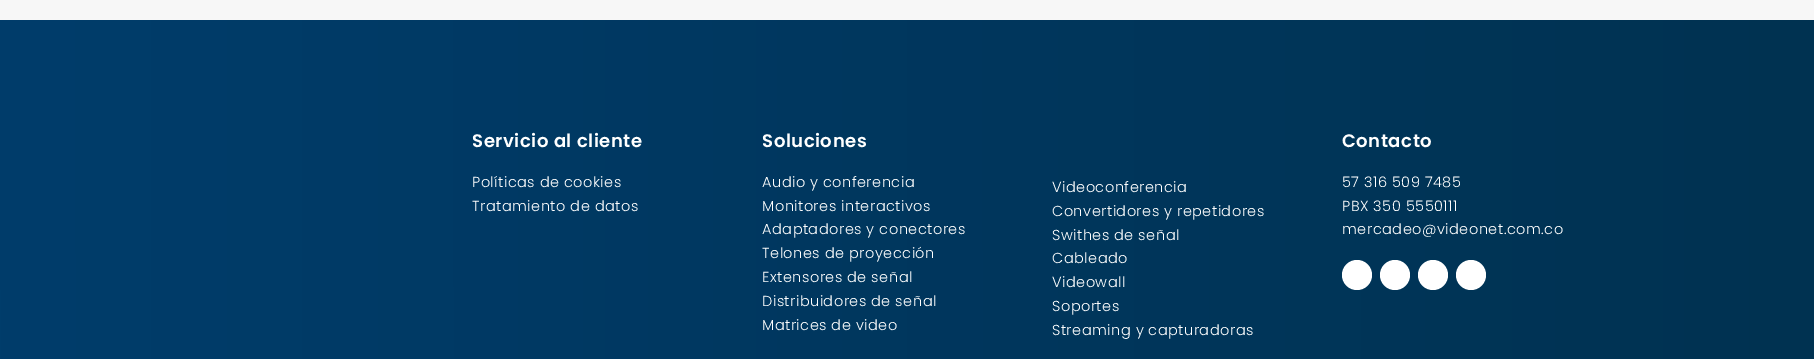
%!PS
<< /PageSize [1814 359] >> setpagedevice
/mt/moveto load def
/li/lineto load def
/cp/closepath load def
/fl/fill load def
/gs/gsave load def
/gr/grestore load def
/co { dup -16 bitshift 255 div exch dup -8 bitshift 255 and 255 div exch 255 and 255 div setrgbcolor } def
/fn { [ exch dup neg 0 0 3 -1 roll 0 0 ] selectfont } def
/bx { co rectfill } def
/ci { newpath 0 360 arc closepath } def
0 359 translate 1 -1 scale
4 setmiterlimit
0 0 1814 359 16#F7F7F7 bx
gs 0 20 mt 1814 20 li 1814 359 li 0 359 li cp clip newpath
<< /ShadingType 2 /ColorSpace /DeviceRGB /Coords [0 296 1814 295] /Extend [true true] /Function << /FunctionType 2 /Domain [0 1] /C0 [0 .239 .42] /C1 [0 .196 .318] /N 1 >> >> shfill gr
16#FFFFFF co
1357 275 15 ci fl
1395 275 15 ci fl
1433 275 15 ci fl
1471 275 15 ci fl
/Poppins-SemiBold 18.1 fn
472 147 mt .5 0 (Servicio al cliente) ashow
/Poppins-Light 14.5 fn
472 187 mt .5 0 (Políticas de cookies) ashow
472 211 mt .5 0 (Tratamiento de datos) ashow
/Poppins-SemiBold 18.1 fn
762 147 mt .5 0 (Soluciones) ashow
/Poppins-Light 14.5 fn
762 187 mt .5 0 (Audio y conferencia) ashow
762 211 mt .5 0 (Monitores interactivos) ashow
762 234 mt .5 0 (Adaptadores y conectores) ashow
762 258 mt .5 0 (Telones de proyección) ashow
762 282 mt .5 0 (Extensores de señal) ashow
762 306 mt .5 0 (Distribuidores de señal) ashow
762 330 mt .5 0 (Matrices de video) ashow
1052 192 mt .5 0 (Videoconferencia) ashow
1052 216 mt .5 0 (Convertidores y repetidores) ashow
1052 240 mt .5 0 (Swithes de señal) ashow
1052 263 mt .5 0 (Cableado) ashow
1052 287 mt .5 0 (Videowall) ashow
1052 311 mt .5 0 (Soportes) ashow
1052 335 mt .5 0 (Streaming y capturadoras) ashow
/Poppins-SemiBold 18.1 fn
1342 147 mt .5 0 (Contacto) ashow
/Poppins-Light 14.5 fn
1342 187 mt .5 0 (57 316 509 7485) ashow
1342 211 mt .5 0 (PBX 350 5550111) ashow
1342 234 mt .5 0 (mercadeo@videonet.com.co) ashow
showpage
